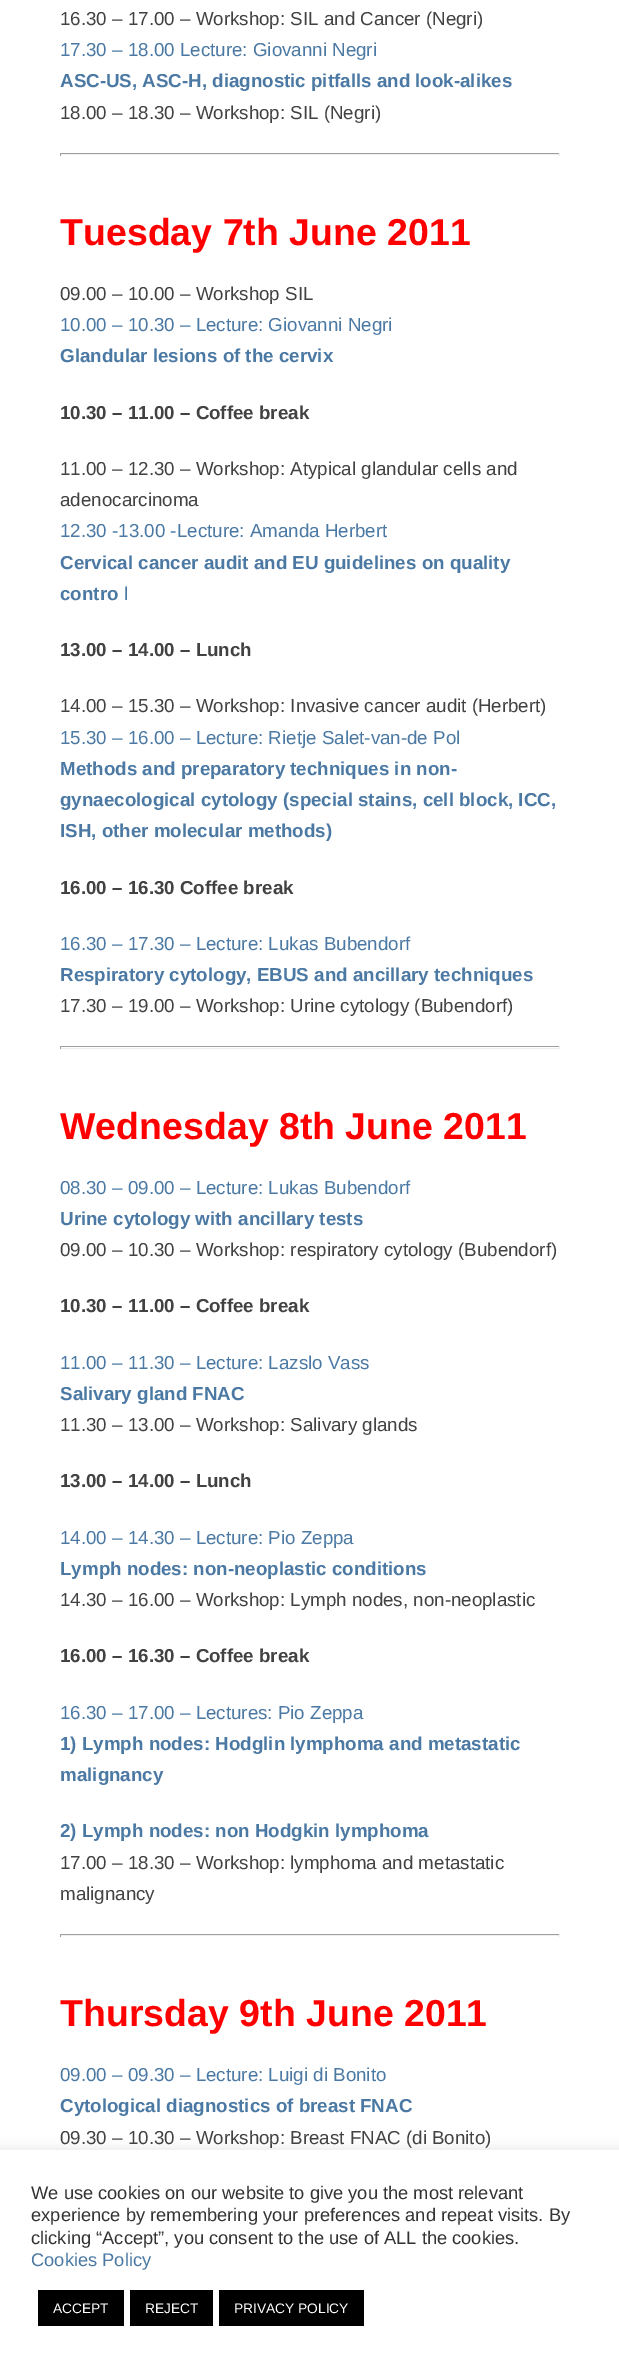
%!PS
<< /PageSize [619 2363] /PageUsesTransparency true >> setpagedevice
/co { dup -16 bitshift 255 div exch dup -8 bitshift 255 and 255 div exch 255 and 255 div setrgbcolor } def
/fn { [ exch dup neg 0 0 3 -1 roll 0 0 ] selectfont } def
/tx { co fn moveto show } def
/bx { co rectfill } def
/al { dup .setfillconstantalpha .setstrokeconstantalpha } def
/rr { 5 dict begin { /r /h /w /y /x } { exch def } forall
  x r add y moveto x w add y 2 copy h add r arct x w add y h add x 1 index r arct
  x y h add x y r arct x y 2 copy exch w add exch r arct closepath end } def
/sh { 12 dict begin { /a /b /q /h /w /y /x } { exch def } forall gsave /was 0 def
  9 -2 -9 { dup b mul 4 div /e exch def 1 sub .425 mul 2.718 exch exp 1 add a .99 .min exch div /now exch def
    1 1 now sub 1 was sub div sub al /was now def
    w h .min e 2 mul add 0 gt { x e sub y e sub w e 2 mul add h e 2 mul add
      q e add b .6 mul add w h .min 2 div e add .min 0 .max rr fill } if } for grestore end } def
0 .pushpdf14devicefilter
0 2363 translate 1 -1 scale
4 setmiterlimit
0 0 619 2363 16#FFFFFF bx
60 153 500 1 16#9F9F9F bx
559 153 1 3 16#EEEEEE bx
60 154 500 1 16#EEEEEE bx
60 153 1 3 16#9F9F9F bx
60 1046 500 1 16#9F9F9F bx
559 1046 1 3 16#EEEEEE bx
60 1048 500 1 16#EEEEEE bx
60 1046 1 3 16#9F9F9F bx
60 1934 500 1 16#9F9F9F bx
559 1934 1 3 16#EEEEEE bx
60 1935 500 1 16#EEEEEE bx
60 1934 1 3 16#9F9F9F bx
16#ACABAB co
0 2149 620 214 0 6 .3 sh
0 2150 619 213 16#FFFFFF bx
38 2290 86 36 16#000000 bx
130 2290 83 36 16#000000 bx
219 2290 145 36 16#000000 bx
(16.30 – 17.00 – Workshop: SIL and Cancer \(Negri\)) 60 25 /LiberationSans-Regular 18.75 16#424242 tx
(17.30 – 18.00 Lecture: Giovanni Negri) 60 56 /LiberationSans-Regular 18.75 16#4B79A3 tx
(ASC-US, ASC-H, diagnostic pitfalls and look-alikes) 60 87 /LiberationSans-Bold 18.75 16#4B79A3 tx
(18.00 – 18.30 – Workshop: SIL \(Negri\)) 60 119 /LiberationSans-Regular 18.75 16#424242 tx
(Tuesday 7th June 2011) 60 245 /LiberationSans-Bold 37.5 16#FF0000 tx
(09.00 – 10.00 – Workshop SIL) 60 300 /LiberationSans-Regular 18.75 16#424242 tx
(10.00 – 10.30 – Lecture: Giovanni Negri) 60 331 /LiberationSans-Regular 18.75 16#4B79A3 tx
(Glandular lesions of the cervix) 60 362 /LiberationSans-Bold 18.75 16#4B79A3 tx
(10.30 – 11.00 – Coffee break) 60 419 /LiberationSans-Bold 18.75 16#424242 tx
(11.00 – 12.30 – Workshop: Atypical glandular cells and) 60 475 /LiberationSans-Regular 18.75 16#424242 tx
(adenocarcinoma) 60 506 /LiberationSans-Regular 18.75 16#424242 tx
(12.30 -13.00 -Lecture: Amanda Herbert) 60 537 /LiberationSans-Regular 18.75 16#4B79A3 tx
(Cervical cancer audit and EU guidelines on quality) 60 569 /LiberationSans-Bold 18.75 16#4B79A3 tx
(contro) 60 600 /LiberationSans-Bold 18.75 16#4B79A3 tx
(l) 124 600 /LiberationSans-Regular 18.75 16#4B79A3 tx
(13.00 – 14.00 – Lunch) 60 656 /LiberationSans-Bold 18.75 16#424242 tx
(14.00 – 15.30 – Workshop: Invasive cancer audit \(Herbert\)) 60 712 /LiberationSans-Regular 18.75 16#424242 tx
(15.30 – 16.00 – Lecture: Rietje Salet-van-de Pol) 60 744 /LiberationSans-Regular 18.75 16#4B79A3 tx
(Methods and preparatory techniques in non-) 60 775 /LiberationSans-Bold 18.75 16#4B79A3 tx
(gynaecological cytology \(special stains, cell block, ICC,) 60 806 /LiberationSans-Bold 18.75 16#4B79A3 tx
(ISH, other molecular methods\)) 60 837 /LiberationSans-Bold 18.75 16#4B79A3 tx
(16.00 – 16.30 Coffee break) 60 894 /LiberationSans-Bold 18.75 16#424242 tx
(16.30 – 17.30 – Lecture: Lukas Bubendorf) 60 950 /LiberationSans-Regular 18.75 16#4B79A3 tx
(Respiratory cytology, EBUS and ancillary techniques) 60 981 /LiberationSans-Bold 18.75 16#4B79A3 tx
(17.30 – 19.00 – Workshop: Urine cytology \(Bubendorf\)) 60 1012 /LiberationSans-Regular 18.75 16#424242 tx
(Wednesday 8th June 2011) 60 1139 /LiberationSans-Bold 37.5 16#FF0000 tx
(08.30 – 09.00 – Lecture: Lukas Bubendorf) 60 1194 /LiberationSans-Regular 18.75 16#4B79A3 tx
(Urine cytology with ancillary tests) 60 1225 /LiberationSans-Bold 18.75 16#4B79A3 tx
(09.00 – 10.30 – Workshop: respiratory cytology \(Bubendorf\)) 60 1256 /LiberationSans-Regular 18.75 16#424242 tx
(10.30 – 11.00 – Coffee break) 60 1312 /LiberationSans-Bold 18.75 16#424242 tx
(11.00 – 11.30 – Lecture: Lazslo Vass) 60 1369 /LiberationSans-Regular 18.75 16#4B79A3 tx
(Salivary gland FNAC) 60 1400 /LiberationSans-Bold 18.75 16#4B79A3 tx
(11.30 – 13.00 – Workshop: Salivary glands) 60 1431 /LiberationSans-Regular 18.75 16#424242 tx
(13.00 – 14.00 – Lunch) 60 1487 /LiberationSans-Bold 18.75 16#424242 tx
(14.00 – 14.30 – Lecture: Pio Zeppa) 60 1544 /LiberationSans-Regular 18.75 16#4B79A3 tx
(Lymph nodes: non-neoplastic conditions) 60 1575 /LiberationSans-Bold 18.75 16#4B79A3 tx
(14.30 – 16.00 – Workshop: Lymph nodes, non-neoplastic) 60 1606 /LiberationSans-Regular 18.75 16#424242 tx
(16.00 – 16.30 – Coffee break) 60 1662 /LiberationSans-Bold 18.75 16#424242 tx
(16.30 – 17.00 – Lectures: Pio Zeppa) 60 1719 /LiberationSans-Regular 18.75 16#4B79A3 tx
(1\) Lymph nodes: Hodglin lymphoma and metastatic) 60 1750 /LiberationSans-Bold 18.75 16#4B79A3 tx
(malignancy) 60 1781 /LiberationSans-Bold 18.75 16#4B79A3 tx
(2\) Lymph nodes: non Hodgkin lymphoma) 60 1837 /LiberationSans-Bold 18.75 16#4B79A3 tx
(17.00 – 18.30 – Workshop: lymphoma and metastatic) 60 1869 /LiberationSans-Regular 18.75 16#424242 tx
(malignancy) 60 1900 /LiberationSans-Regular 18.75 16#424242 tx
(Thursday 9th June 2011) 60 2026 /LiberationSans-Bold 37.5 16#FF0000 tx
(09.00 – 09.30 – Lecture: Luigi di Bonito) 60 2081 /LiberationSans-Regular 18.75 16#4B79A3 tx
(Cytological diagnostics of breast FNAC) 60 2112 /LiberationSans-Bold 18.75 16#4B79A3 tx
(09.30 – 10.30 – Workshop: Breast FNAC \(di Bonito\)) 60 2144 /LiberationSans-Regular 18.75 16#424242 tx
(We use cookies on our website to give you the most relevant) 31 2199 /LiberationSans-Regular 18.3 16#333333 tx
(experience by remembering your preferences and repeat visits. By) 31 2221 /LiberationSans-Regular 18.3 16#333333 tx
(clicking “Accept”, you consent to the use of ALL the cookies.) 31 2244 /LiberationSans-Regular 18.3 16#333333 tx
(Cookies Policy) 31 2266 /LiberationSans-Regular 18.3 16#4B79A3 tx
(ACCEPT) 53 2313 /LiberationSans-Regular 13.75 16#FFFFFF tx
(REJECT) 145 2313 /LiberationSans-Regular 13.75 16#FFFFFF tx
(PRIVACY POLICY) 234 2313 /LiberationSans-Regular 13.75 16#FFFFFF tx
.poppdf14devicefilter showpage
